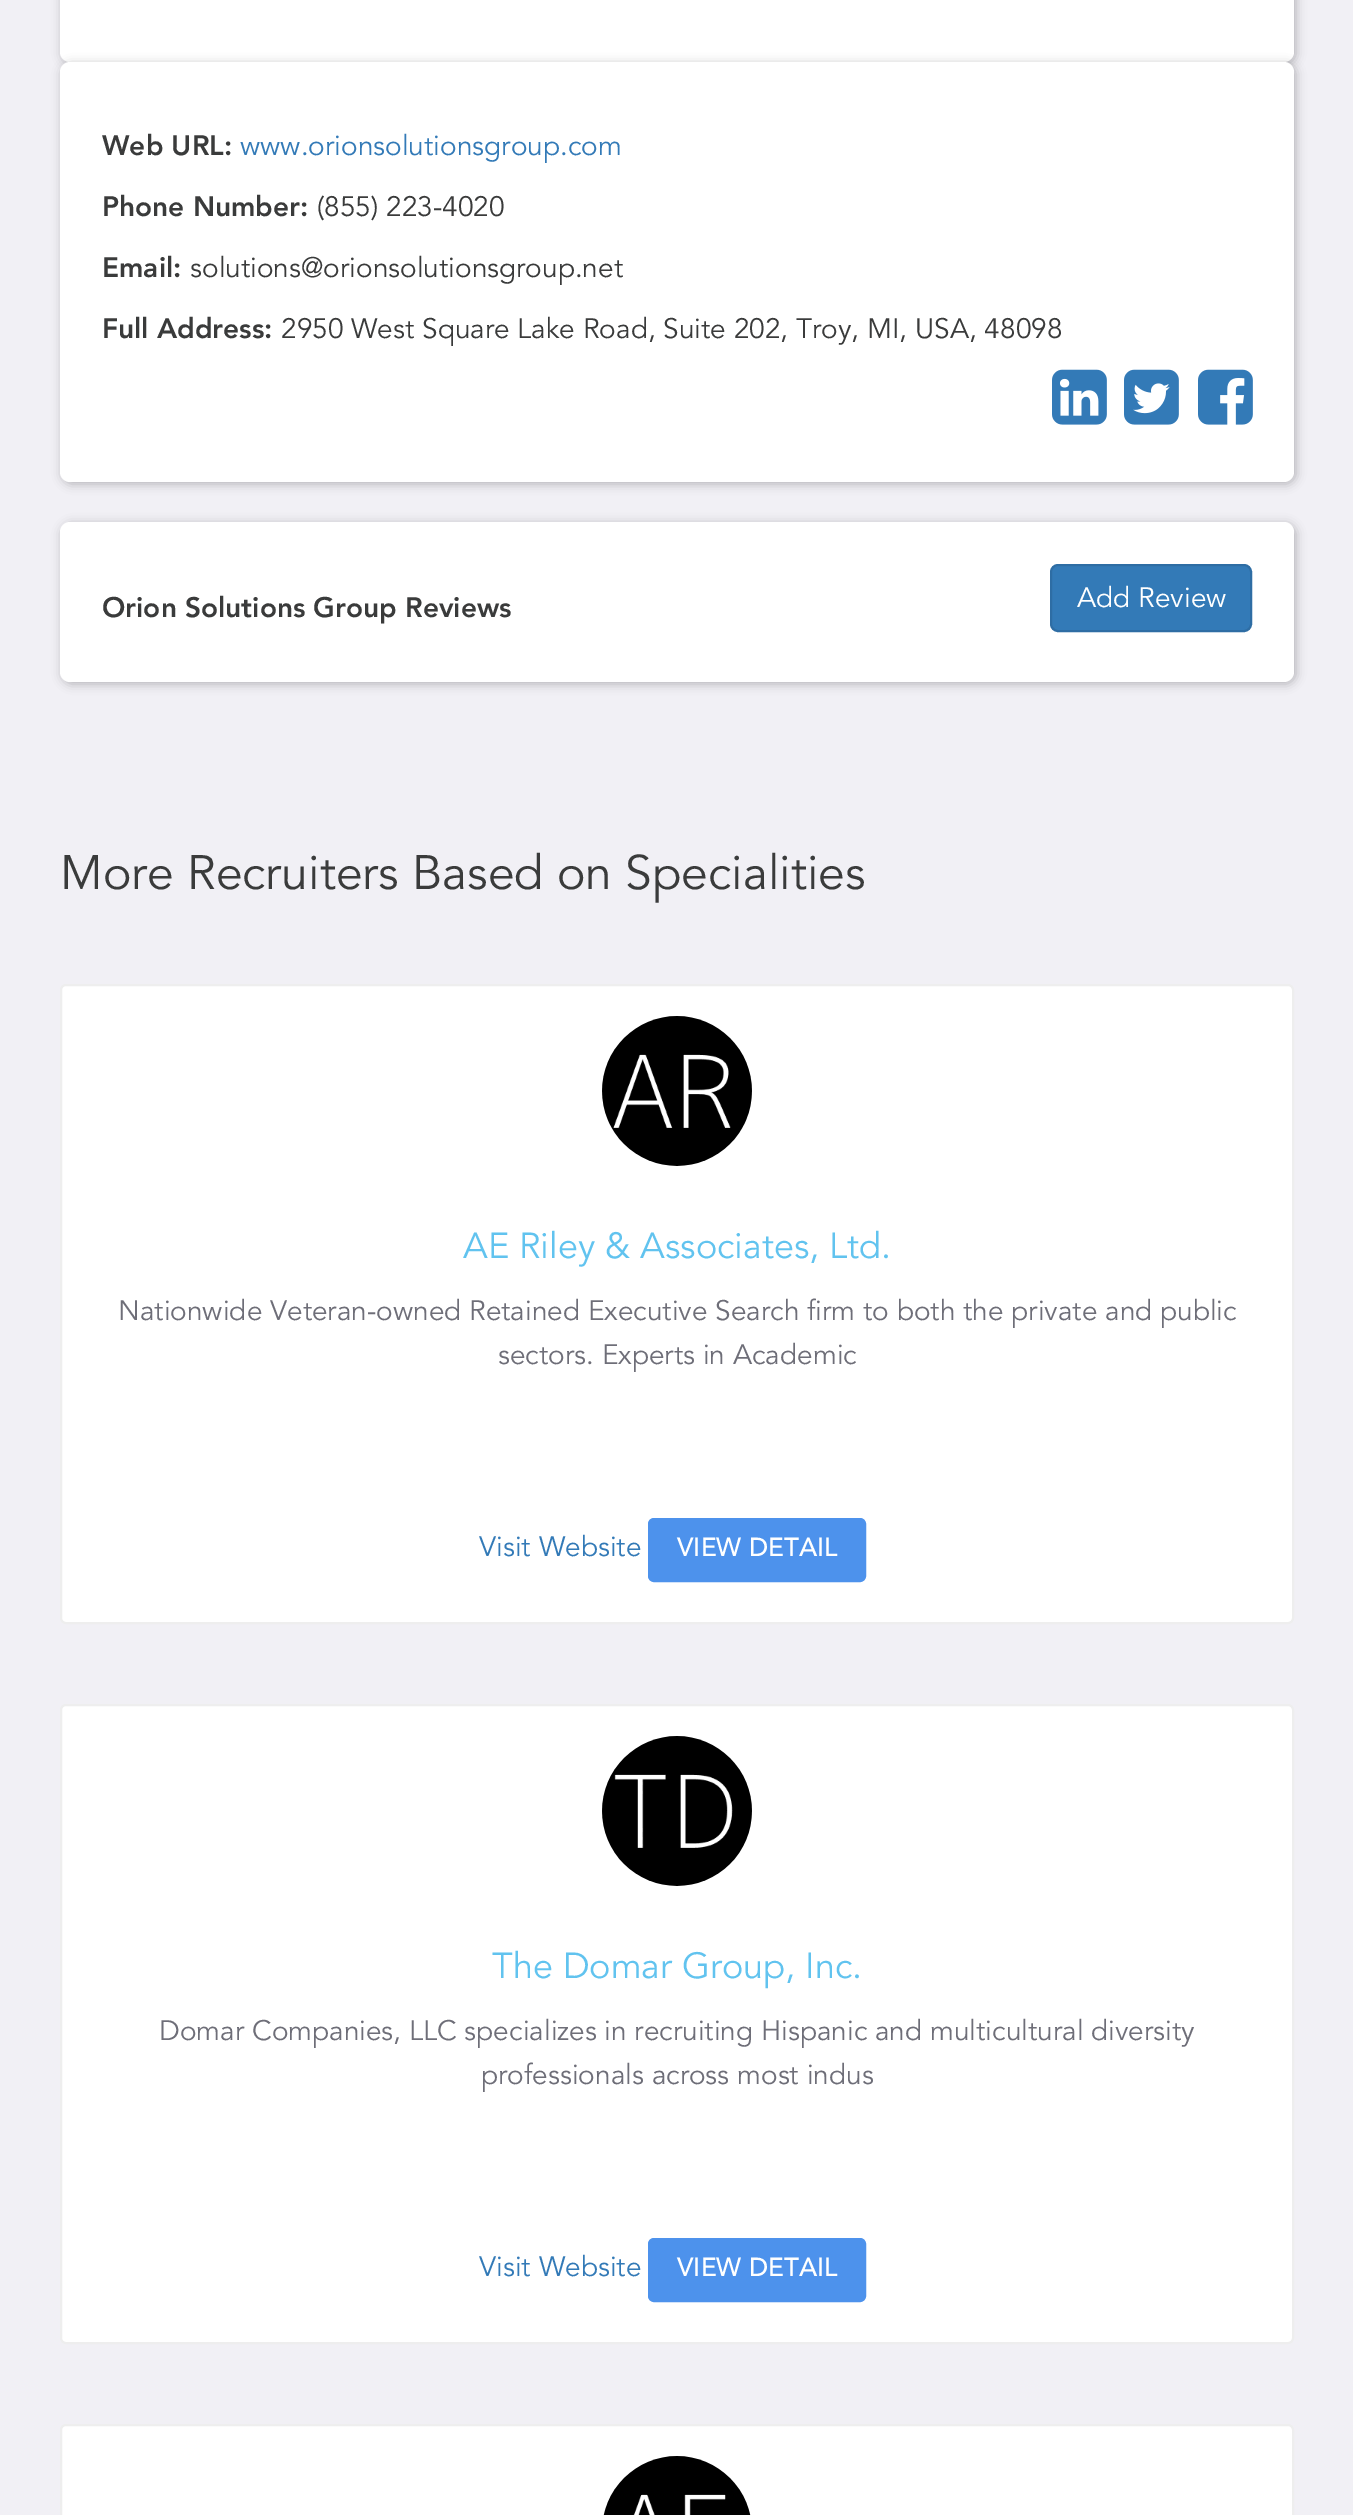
%!PS
<< /PageSize [1353 2515] /PageUsesTransparency true >> setpagedevice
/fl/fill load def
/st/stroke load def
/gs/gsave load def
/gr/grestore load def
/lw/setlinewidth load def
/co { dup -16 bitshift 255 div exch dup -8 bitshift 255 and 255 div exch 255 and 255 div setrgbcolor } def
/fn { [ exch dup neg 0 0 3 -1 roll 0 0 ] selectfont } def
/tx { co fn moveto show } def
/bx { co rectfill } def
/al { dup .setfillconstantalpha .setstrokeconstantalpha } def
/rr { 5 dict begin { /r /h /w /y /x } { exch def } forall
  x r add y moveto x w add y 2 copy h add r arct x w add y h add x 1 index r arct
  x y h add x y r arct x y 2 copy exch w add exch r arct closepath end } def
/sh { 12 dict begin { /a /b /q /h /w /y /x } { exch def } forall gsave /was 0 def
  9 -2 -9 { dup b mul 4 div /e exch def 1 sub .425 mul 2.718 exch exp 1 add a .99 .min exch div /now exch def
    1 1 now sub 1 was sub div sub al /was now def
    w h .min e 2 mul add 0 gt { x e sub y e sub w e 2 mul add h e 2 mul add
      q e add b .6 mul add w h .min 2 div e add .min 0 .max rr fill } if } for grestore end } def
/im { 5 dict begin { /h /w /y /x /name } { exch def } forall
  gsave x y translate w h scale
  w h 8 [w 0 0 h 0 0] name (r) file false 3 colorimage grestore end } def
0 .pushpdf14devicefilter
0 2515 translate 1 -1 scale
4 setmiterlimit
0 0 1353 2515 16#F1F0F5 bx
16#000000 co
62 -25 1234 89 10 5 .25 sh
16#FFFFFF co
60 -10 1234 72 10 rr fl
16#000000 co
62 64 1234 420 10 5 .25 sh
16#FFFFFF co
60 62 1234 420 10 rr fl
(media/1.raw) 1052 369 55 56 im
(media/2.raw) 1124 369 55 56 im
(media/3.raw) 1198 369 55 56 im
16#000000 co
62 524 1234 160 10 5 .25 sh
16#FFFFFF co
60 522 1234 160 10 rr fl
16#337AB7 co
1051 565 200 66 7 rr gs fl gr
16#2E6DA4 co
2 lw
st
16#FFFFFF co
61 985 1232 638 5 rr gs fl gr
16#EEEEEE co
st
(media/4.raw) 602 1016 150 150 im
16#4D92EC co
649 1519 216 62 5 rr gs fl gr
st
16#FFFFFF co
61 1705 1232 638 5 rr gs fl gr
16#EEEEEE co
st
(media/5.raw) 602 1736 150 150 im
16#4D92EC co
649 2239 216 62 5 rr gs fl gr
st
16#FFFFFF co
61 2425 1232 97 5 rr gs fl gr
16#EEEEEE co
st
(media/6.raw) 603 2456 148 59 im
(Web URL:) 102 155 /Avenir-Black 28 16#3A3B3B tx
(www.orionsolutionsgroup.com) 240 155 /Avenir-Regular 28 16#337AB7 tx
(Phone Number:) 102 216 /Avenir-Black 28 16#3A3B3B tx
(\(855\) 223-4020) 317 216 /Avenir-Regular 28 16#3A3B3B tx
(Email:) 102 277 /Avenir-Black 28 16#3A3B3B tx
(solutions@orionsolutionsgroup.net) 190 277 /Avenir-Regular 28 16#3A3B3B tx
(Full Address:) 102 338 /Avenir-Black 28 16#3A3B3B tx
(2950 West Square Lake Road, Suite 202, Troy, MI, USA, 48098) 281 338 /Avenir-Regular 28 16#3A3B3B tx
(Orion Solutions Group Reviews) 102 617 /Avenir-Black 28 16#3A3B3B tx
(Add Review) 1077 607 /Avenir-Regular 28 16#FFFFFF tx
(More Recruiters Based on Specialities) 60 889 /Avenir-Regular 48 16#3A3B3B tx
(AE Riley & Associates, Ltd.) 463 1258 /Avenir-Regular 36 16#61C3EF tx
(Nationwide Veteran-owned Retained Executive Search firm to both the private and public) 118 1320 /Avenir-Regular 28 16#6E6E78 tx
(sectors. Experts in Academic) 498 1364 /Avenir-Regular 28 16#6E6E78 tx
(Visit Website) 479 1556 /Avenir-Regular 28 16#337AB7 tx
(VIEW DETAIL) 677 1556 /Avenir-Medium 26 16#FFFFFF tx
(The Domar Group, Inc.) 492 1978 /Avenir-Regular 36 16#61C3EF tx
(Domar Companies, LLC specializes in recruiting Hispanic and multicultural diversity) 159 2040 /Avenir-Regular 28 16#6E6E78 tx
(professionals across most indus) 481 2084 /Avenir-Regular 28 16#6E6E78 tx
(Visit Website) 479 2276 /Avenir-Regular 28 16#337AB7 tx
(VIEW DETAIL) 677 2276 /Avenir-Medium 26 16#FFFFFF tx
.poppdf14devicefilter showpage
